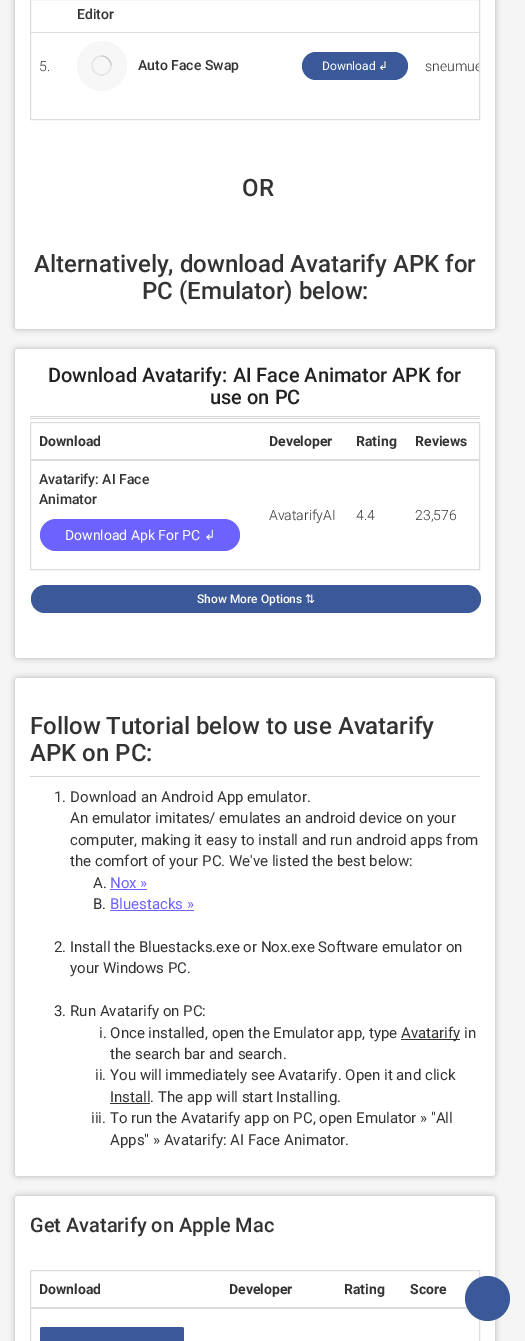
%!PS
<< /PageSize [525 1341] /PageUsesTransparency true >> setpagedevice
/mt/moveto load def
/ct/curveto load def
/fl/fill load def
/st/stroke load def
/gs/gsave load def
/gr/grestore load def
/lw/setlinewidth load def
/co { dup -16 bitshift 255 div exch dup -8 bitshift 255 and 255 div exch 255 and 255 div setrgbcolor } def
/fn { [ exch dup neg 0 0 3 -1 roll 0 0 ] selectfont } def
/tx { co fn moveto show } def
/bx { co rectfill } def
/al { dup .setfillconstantalpha .setstrokeconstantalpha } def
/ci { newpath 0 360 arc closepath } def
/rr { 5 dict begin { /r /h /w /y /x } { exch def } forall
  x r add y moveto x w add y 2 copy h add r arct x w add y h add x 1 index r arct
  x y h add x y r arct x y 2 copy exch w add exch r arct closepath end } def
/sh { 12 dict begin { /a /b /q /h /w /y /x } { exch def } forall gsave /was 0 def
  9 -2 -9 { dup b mul 4 div /e exch def 1 sub .425 mul 2.718 exch exp 1 add a .99 .min exch div /now exch def
    1 1 now sub 1 was sub div sub al /was now def
    w h .min e 2 mul add 0 gt { x e sub y e sub w e 2 mul add h e 2 mul add
      q e add b .6 mul add w h .min 2 div e add .min 0 .max rr fill } if } for grestore end } def
0 .pushpdf14devicefilter
0 1341 translate 1 -1 scale
4 setmiterlimit
0 0 525 1341 16#F5F5F5 bx
16#000000 co
15 -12 480 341 3 3 .27 sh
16#FFFFFF co
15 -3 480 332 3 rr fl
16#DDDDDD co
30.5 -.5 449 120 rectstroke
16#F7F7F7 co
102 66 25 ci fl
16#E2E2E2 co
1.1 lw
101.5 65.5 9.5 ci st
16#CCCCCC co
111 65.5 mt 111 60 106.5 56 101.5 56 ct st
16#3B5998 co
302 52 106 28 14 rr fl
31 32 448 1 16#DDDDDD bx
16#000000 co
15 349 480 309 3 3 .27 sh
16#FFFFFF co
15 349 480 309 3 rr fl
30 416 450 1 16#D5D5D5 bx
30 418 450 1 16#D5D5D5 bx
16#DDDDDD co
1 lw
30.5 422.5 449 147 rectstroke
31 459 448 2 16#DDDDDD bx
16#6C63FF co
40 519 200 32 16 rr fl
16#3B5998 co
31 585 450 28 14 rr fl
16#000000 co
15 678 480 498 3 3 .27 sh
16#FFFFFF co
15 678 480 498 3 rr fl
30 776 450 1 16#D5D5D5 bx
110 889 37 1 16#6C63FF bx
110 910 84 1 16#6C63FF bx
401 1039 59 1 16#333333 bx
110 1103 40 1 16#333333 bx
16#000000 co
15 1196 480 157 3 3 .27 sh
16#FFFFFF co
15 1196 480 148 3 rr fl
16#DDDDDD co
30.5 1270.5 449 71 rectstroke
31 1307 437 2 16#DDDDDD bx
16#3B5998 co
40 1327 144 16 2 rr fl
487.5 1298.5 22.5 ci fl
(Editor) 77 19 /Roboto-Medium 14 16#333333 tx
(5.) 39 71 /Roboto-Light 14 16#333333 tx
(Auto Face Swap) 138 70 /Roboto-Medium 14 16#333333 tx
(Download) 322 70 /Roboto-Regular 12 16#FFFFFF tx
(↲) 378 70 /DejaVuSans-Regular 12 16#FFFFFF tx
gs
31 0 448 119 rectclip
(sneumue) 425 71 /Roboto-Light 14 16#333333 tx
gr
(OR) 242 196 /Roboto-Medium 24 16#333333 tx
(Alternatively, download Avatarify APK for) 34 272 /Roboto-Medium 24 16#333333 tx
(PC \(Emulator\) below:) 142 299 /Roboto-Medium 24 16#333333 tx
(Download Avatarify: AI Face Animator APK for) 48 382 /Roboto-Medium 20 16#212121 tx
(use on PC) 210 404 /Roboto-Medium 20 16#212121 tx
(Download) 39 446 /Roboto-Bold 14 16#333333 tx
(Developer) 269 446 /Roboto-Bold 14 16#333333 tx
(Rating) 356 446 /Roboto-Bold 14 16#333333 tx
(Reviews) 415 446 /Roboto-Bold 14 16#333333 tx
(Avatarify: AI Face) 39 484 /Roboto-Medium 14 16#333333 tx
(Animator) 39 504 /Roboto-Medium 14 16#333333 tx
(Download Apk For PC) 65 540 /Roboto-Regular 14 16#FFFFFF tx
(↲) 204 540 /DejaVuSans-Regular 14 16#FFFFFF tx
(AvatarifyAI) 269 520 /Roboto-Light 14 16#333333 tx
(4.4) 356 520 /Roboto-Light 14 16#333333 tx
(23,576) 415 520 /Roboto-Light 14 16#333333 tx
(Show More Options) 197 603 /Roboto-Medium 12 16#FFFFFF tx
(⇅) 305 603 /DejaVuSans-Regular 12 16#FFFFFF tx
(Follow Tutorial below to use Avatarify) 30 734 /Roboto-Medium 24 16#333333 tx
(APK on PC:) 30 761 /Roboto-Medium 24 16#333333 tx
(1. Download an Android App emulator.) 54 802 /Roboto-Regular 15 16#333333 tx
(An emulator imitates/ emulates an android device on your) 70 823 /Roboto-Regular 15 16#333333 tx
(computer, making it easy to install and run android apps from) 70 845 /Roboto-Regular 15 16#333333 tx
(the comfort of your PC. We've listed the best below:) 70 866 /Roboto-Regular 15 16#333333 tx
(A.) 93 888 /Roboto-Regular 15 16#333333 tx
(Nox ») 110 888 /Roboto-Regular 15 16#6C63FF tx
(B.) 93 909 /Roboto-Regular 15 16#333333 tx
(Bluestacks ») 110 909 /Roboto-Regular 15 16#6C63FF tx
(2. Install the Bluestacks.exe or Nox.exe Software emulator on) 54 952 /Roboto-Regular 15 16#333333 tx
(your Windows PC.) 70 973 /Roboto-Regular 15 16#333333 tx
(3. Run Avatarify on PC:) 54 1016 /Roboto-Regular 15 16#333333 tx
(i. Once installed, open the Emulator app, type) 99 1038 /Roboto-Regular 15 16#333333 tx
(Avatarify in) 401 1038 /Roboto-Regular 15 16#333333 tx
(the search bar and search.) 110 1059 /Roboto-Regular 15 16#333333 tx
(ii. You will immediately see Avatarify. Open it and click) 95 1080 /Roboto-Regular 15 16#333333 tx
(Install. The app will start Installing.) 110 1102 /Roboto-Regular 15 16#333333 tx
(iii. To run the Avatarify app on PC, open Emulator » "All) 91 1123 /Roboto-Regular 15 16#333333 tx
(Apps" » Avatarify: AI Face Animator.) 110 1145 /Roboto-Regular 15 16#333333 tx
(Get Avatarify on Apple Mac) 30 1232 /Roboto-Medium 20 16#333333 tx
(Download) 39 1294 /Roboto-Bold 14 16#333333 tx
(Developer) 229 1294 /Roboto-Bold 14 16#333333 tx
(Rating) 344 1294 /Roboto-Bold 14 16#333333 tx
(Score) 410 1294 /Roboto-Bold 14 16#333333 tx
.poppdf14devicefilter showpage
